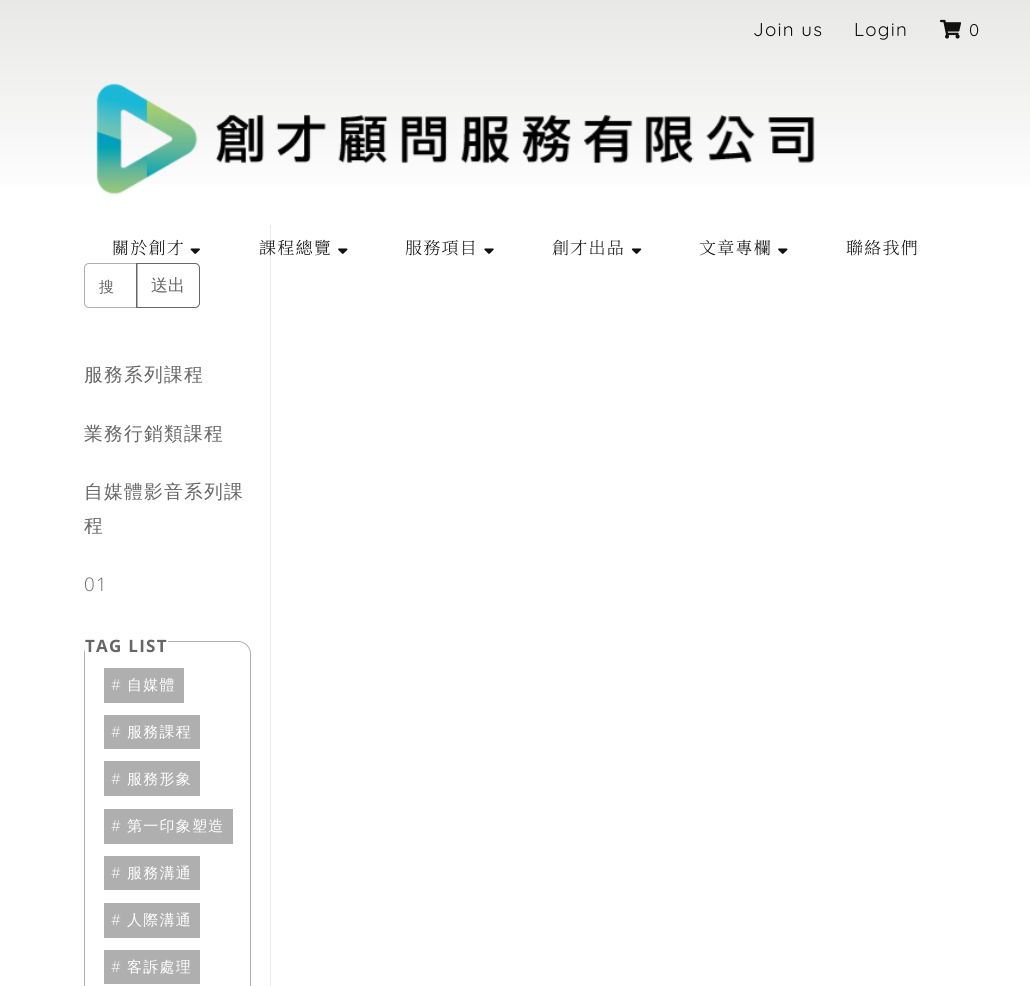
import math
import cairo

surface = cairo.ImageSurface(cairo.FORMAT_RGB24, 1030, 986)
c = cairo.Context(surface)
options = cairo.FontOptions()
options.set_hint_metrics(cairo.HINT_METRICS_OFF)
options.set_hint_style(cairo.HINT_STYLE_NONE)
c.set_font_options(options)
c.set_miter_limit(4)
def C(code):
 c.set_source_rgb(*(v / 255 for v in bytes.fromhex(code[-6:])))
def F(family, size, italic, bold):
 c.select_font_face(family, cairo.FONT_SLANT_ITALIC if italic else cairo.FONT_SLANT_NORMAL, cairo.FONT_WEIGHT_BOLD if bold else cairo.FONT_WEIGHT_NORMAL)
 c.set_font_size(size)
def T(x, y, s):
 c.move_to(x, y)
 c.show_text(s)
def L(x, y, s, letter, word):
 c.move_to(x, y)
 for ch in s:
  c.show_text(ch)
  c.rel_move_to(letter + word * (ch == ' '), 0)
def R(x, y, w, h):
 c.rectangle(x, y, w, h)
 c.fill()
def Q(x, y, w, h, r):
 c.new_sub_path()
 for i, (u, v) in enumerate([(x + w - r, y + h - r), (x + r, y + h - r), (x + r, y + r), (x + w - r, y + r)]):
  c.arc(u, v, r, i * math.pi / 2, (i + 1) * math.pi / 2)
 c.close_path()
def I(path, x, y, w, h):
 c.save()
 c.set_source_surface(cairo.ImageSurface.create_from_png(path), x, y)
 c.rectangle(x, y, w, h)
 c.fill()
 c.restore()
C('ffffff')
c.paint()
gradient = cairo.LinearGradient(515,0,515,206)
gradient.add_color_stop_rgba(0,0.91,0.91,0.906,1)
gradient.add_color_stop_rgba(1,1,1,1,1)
c.set_source(gradient)
R(0,0,1030,185)
F('Quicksand Light',18.75,0,0)
C('101010')
L(753,36,'Join us',1.25,0)
L(854,36,'Login',1.25,0)
I('1.png',940,19,22,20)
F('Quicksand Light',17,0,0)
L(969,36,'0',1.25,0)
I('2.png',96,83,719,112)
F('Noto Serif TC Light',17,0,0)
L(112,254,'關於創才',1.25,0)
I('3.png',190,248,10,6)
C('ebebeb')
R(270,225,1,761)
C('101010')
L(259,254,'課程總覽',1.25,0)
I('4.png',338,248,10,6)
L(405,254,'服務項目',1.25,0)
I('5.png',484,248,10,6)
L(552,254,'創才出品',1.25,0)
I('6.png',631,248,11,6)
L(699,254,'文章專欄',1.25,0)
I('4.png',778,248,10,6)
L(846,254,'聯絡我們',1.25,0)
c.new_path()
c.move_to(89,263.5)
c.line_to(137.5,263.5)
c.line_to(137.5,307.5)
c.line_to(89,307.5)
c.curve_to(86.5,307.5,84.5,305.5,84.5,303)
c.line_to(84.5,268)
c.curve_to(84.5,265.5,86.5,263.5,89,263.5)
c.close_path()
C('afafaf')
c.set_line_width(1)
c.stroke()
F('WenQuanYi Zen Hei Medium',15,0,0)
C('666666')
T(99,292,'搜')
c.new_path()
c.move_to(136.5,263.5)
c.line_to(195,263.5)
c.curve_to(197.5,263.5,199.5,265.5,199.5,268)
c.line_to(199.5,303)
c.curve_to(199.5,305.5,197.5,307.5,195,307.5)
c.line_to(136.5,307.5)
c.close_path()
c.stroke()
F('WenQuanYi Zen Hei Medium',17,0,0)
T(151,291,'送出')
F('WenQuanYi Zen Hei Medium',18.75,0,0)
L(84,381,'服務系列課程',1.25,0)
L(84,440,'業務行銷類課程',1.25,0)
L(84,498,'自媒體影音系列課',1.25,0)
L(84,532,'程',1.25,0)
F('Open Sans Light',18.75,0,0)
L(84,591,'01',1.25,0)
Q(84.5,641.5,166,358,12.5)
C('afafaf')
c.stroke()
C('ffffff')
R(85,641,83,13)
F('Open Sans',17,0,1)
C('666666')
L(85,652,'TAG LIST',1.25,0)
C('afafaf')
R(104,668,80,35)
F('Open Sans Light',15,0,0)
C('ffffff')
L(111,690,'#',1.25,0)
F('WenQuanYi Zen Hei Medium',15,0,0)
L(127,690,'自媒體',1.25,0)
C('afafaf')
R(104,715,96,34)
F('Open Sans Light',15,0,0)
C('ffffff')
L(111,737,'#',1.25,0)
F('WenQuanYi Zen Hei Medium',15,0,0)
L(127,737,'服務課程',1.25,0)
C('afafaf')
R(104,761,96,35)
F('Open Sans Light',15,0,0)
C('ffffff')
L(111,784,'#',1.25,0)
F('WenQuanYi Zen Hei Medium',15,0,0)
L(127,784,'服務形象',1.25,0)
C('afafaf')
R(104,809,129,35)
F('Open Sans Light',15,0,0)
C('ffffff')
L(111,831,'#',1.25,0)
F('WenQuanYi Zen Hei Medium',15,0,0)
L(127,831,'第一印象塑造',1.25,0)
C('afafaf')
R(104,856,96,34)
F('Open Sans Light',15,0,0)
C('ffffff')
L(111,878,'#',1.25,0)
F('WenQuanYi Zen Hei Medium',15,0,0)
L(127,878,'服務溝通',1.25,0)
C('afafaf')
R(104,903,96,35)
F('Open Sans Light',15,0,0)
C('ffffff')
L(111,925,'#',1.25,0)
F('WenQuanYi Zen Hei Medium',15,0,0)
L(127,925,'人際溝通',1.25,0)
C('afafaf')
R(104,950,96,34)
F('Open Sans Light',15,0,0)
C('ffffff')
L(111,972,'#',1.25,0)
F('WenQuanYi Zen Hei Medium',15,0,0)
L(127,972,'客訴處理',1.25,0)
surface.write_to_png('o.png')
